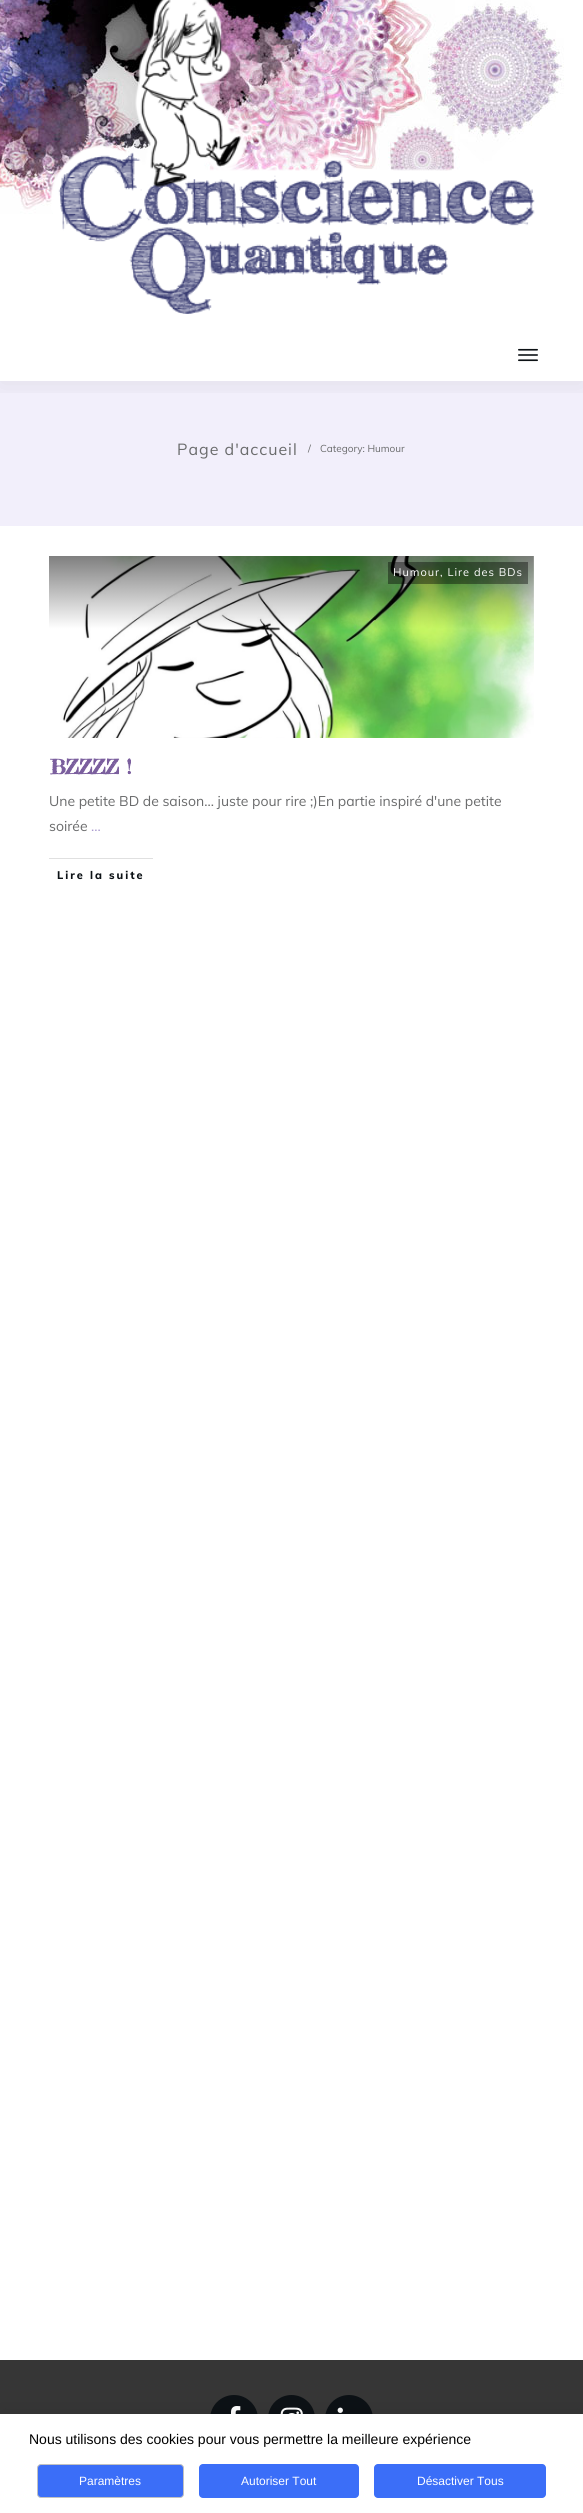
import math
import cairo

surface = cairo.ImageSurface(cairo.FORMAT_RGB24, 583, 2513)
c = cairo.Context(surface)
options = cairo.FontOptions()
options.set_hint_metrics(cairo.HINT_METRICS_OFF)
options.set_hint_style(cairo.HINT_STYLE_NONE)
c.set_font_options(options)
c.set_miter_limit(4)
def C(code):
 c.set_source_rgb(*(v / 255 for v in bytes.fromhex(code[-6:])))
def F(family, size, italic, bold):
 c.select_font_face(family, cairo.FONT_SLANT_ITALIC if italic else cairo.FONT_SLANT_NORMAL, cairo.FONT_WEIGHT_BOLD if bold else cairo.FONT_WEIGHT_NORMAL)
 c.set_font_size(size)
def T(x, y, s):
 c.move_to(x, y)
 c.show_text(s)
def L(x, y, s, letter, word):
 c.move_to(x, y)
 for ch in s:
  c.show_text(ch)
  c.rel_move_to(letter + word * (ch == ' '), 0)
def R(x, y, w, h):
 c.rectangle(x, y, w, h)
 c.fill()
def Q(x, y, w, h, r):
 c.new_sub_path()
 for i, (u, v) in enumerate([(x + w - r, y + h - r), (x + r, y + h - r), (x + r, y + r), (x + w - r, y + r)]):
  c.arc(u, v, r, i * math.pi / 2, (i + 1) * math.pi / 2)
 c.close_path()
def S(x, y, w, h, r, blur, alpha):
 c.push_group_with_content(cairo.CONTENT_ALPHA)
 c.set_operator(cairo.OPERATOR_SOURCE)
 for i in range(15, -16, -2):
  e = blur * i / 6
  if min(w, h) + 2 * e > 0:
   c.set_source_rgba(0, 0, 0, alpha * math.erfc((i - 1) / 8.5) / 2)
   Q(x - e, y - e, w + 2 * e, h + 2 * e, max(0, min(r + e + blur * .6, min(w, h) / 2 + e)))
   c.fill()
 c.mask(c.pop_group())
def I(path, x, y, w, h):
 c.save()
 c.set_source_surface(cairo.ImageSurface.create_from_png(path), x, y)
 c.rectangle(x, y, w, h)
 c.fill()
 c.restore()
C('ffffff')
c.paint()
C('f2effb')
R(0,381,583,145)
c.save()
c.rectangle(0,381,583,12)
c.clip()
C('000000')
S(0,2,583,381,0,15,.08)
c.restore()
I('1.png',0,0,564,214)
I('2.png',49,0,486,314)
I('3.png',518,348,20,14)
F('Muli',16,0,0)
C('6a6b6c')
L(177,455,'Page d\'accueil',1,0)
F('Muli',10,0,0)
T(308,452,'/')
T(320,452,'Category: Humour')
I('4.png',49,556,485,182)
c.set_source_rgba(0,0,0,0.4)
R(388,562,140,22)
F('Muli',11,0,0)
C('ffffff')
L(393,576,'Humour, Lire des BDs',1,0)
F('Fredericka the Great',20,0,1)
C('7b5f9e')
T(50,774,'BZZZZ !')
F('Muli',14,0,0)
C('6a6b6c')
T(49,806,'Une petite BD de saison... juste pour rire ;)En partie inspiré d\'une petite')
T(49,831,'soirée')
C('aa9bcf')
T(91,831,'...')
C('e0e0e0')
R(49,858,104,1)
F('Muli ExtraBold',11,0,0)
C('0c1115')
L(57,879,'Lire la suite',2,0)
C('363636')
R(0,2360,583,54)
C('0c1115')
c.new_path()
c.arc(234,2419,24,0,2 * math.pi)
c.fill()
I('5.png',231,2406,10,8)
Q(268,2395,47,48,23.5)
c.fill()
I('6.png',280,2407,23,7)
c.arc(349,2419,24,0,2 * math.pi)
c.fill()
I('7.png',337,2407,6,6)
C('000000')
S(0,2410,583,99,0,9.5,.07)
C('ffffff')
R(0,2414,583,99)
F('Liberation Sans',14,0,0)
C('000000')
T(29,2444,'Nous utilisons des cookies pour vous permettre la meilleure expérience')
C('3b6ef8')
Q(37.5,2464.5,146,33,3.5)
c.fill_preserve()
C('c1c1c1')
c.set_line_width(1)
c.stroke()
F('Liberation Sans',12,0,0)
C('ffffff')
T(79,2485,'Paramètres')
C('3b6ef8')
Q(199,2464,160,34,4)
c.fill()
C('ffffff')
T(241,2485,'Autoriser Tout')
C('3b6ef8')
Q(374,2464,172,34,4)
c.fill()
C('ffffff')
T(417,2485,'Désactiver Tous')
surface.write_to_png('o.png')
